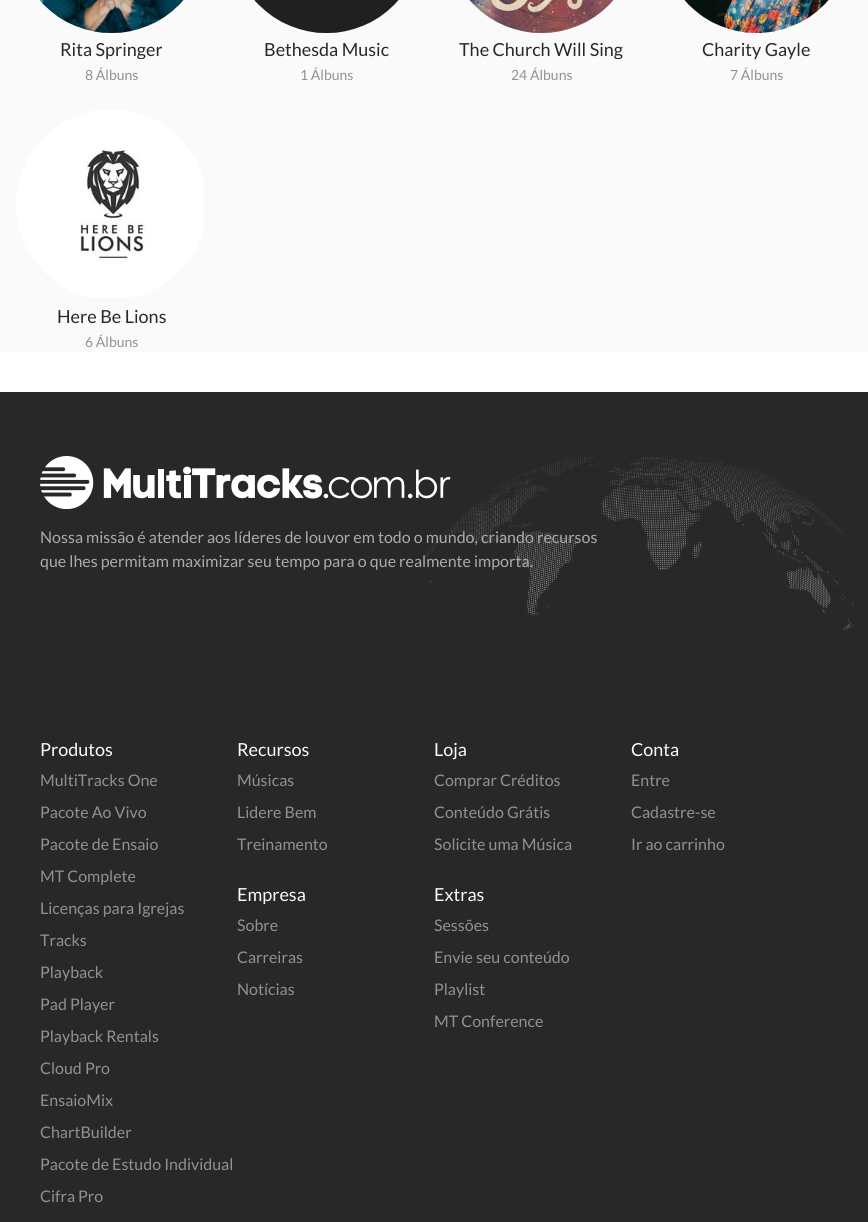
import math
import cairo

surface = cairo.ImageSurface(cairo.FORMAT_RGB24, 868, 1222)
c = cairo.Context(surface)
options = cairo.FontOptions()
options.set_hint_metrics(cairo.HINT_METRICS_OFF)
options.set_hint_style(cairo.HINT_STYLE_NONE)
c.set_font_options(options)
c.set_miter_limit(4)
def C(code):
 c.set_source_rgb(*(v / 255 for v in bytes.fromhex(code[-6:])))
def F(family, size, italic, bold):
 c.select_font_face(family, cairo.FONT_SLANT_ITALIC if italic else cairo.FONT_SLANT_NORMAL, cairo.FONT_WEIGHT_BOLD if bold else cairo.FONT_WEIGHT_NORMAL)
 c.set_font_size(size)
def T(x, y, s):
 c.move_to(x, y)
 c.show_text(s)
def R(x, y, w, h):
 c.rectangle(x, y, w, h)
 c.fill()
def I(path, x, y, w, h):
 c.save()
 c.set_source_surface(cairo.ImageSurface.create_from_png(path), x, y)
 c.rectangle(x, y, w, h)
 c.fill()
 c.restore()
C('ffffff')
c.paint()
C('fafafa')
R(0,0,868,352)
I('1.png',39,0,145,33)
c.save()
c.rectangle(16,39,191,20)
c.clip()
F('Lato',18,0,0)
C('282828')
T(60,56,'Rita Springer')
c.restore()
F('Lato',14,0,0)
C('919191')
T(85,80,'8 Álbuns')
I('2.png',254,0,145,33)
F('Lato',18,0,0)
C('282828')
T(264,56,'Bethesda Music')
F('Lato',14,0,0)
C('919191')
T(300,80,'1 Álbuns')
I('3.png',469,0,145,33)
c.save()
c.rectangle(446,39,191,20)
c.clip()
F('Lato',18,0,0)
C('282828')
T(459,56,'The Church Will Sing')
c.restore()
T(511,80,'24 Álbuns')
I('4.png',684,0,145,33)
F('Lato',18,0,0)
C('282828')
T(702,56,'Charity Gayle')
F('Lato',14,0,0)
C('919191')
T(730,80,'7 Álbuns')
I('5.png',16,109,188,188)
F('Lato',18,0,0)
C('282828')
T(57,323,'Here Be Lions')
F('Lato',14,0,0)
C('919191')
T(85,347,'6 Álbuns')
C('282828')
R(0,392,868,830)
I('6.png',424,457,430,174)
I('7.png',40,456,411,53)
F('Lato',16,0,0)
C('ababab')
T(40,543,'Nossa missão é atender aos líderes de louvor em todo o mundo, criando recursos')
T(40,567,'que lhes permitam maximizar seu tempo para o que realmente importa.')
F('Lato',18,0,0)
C('fafafa')
T(40,756,'Produtos')
F('Lato',16,0,0)
C('919191')
T(40,786,'MultiTracks One')
T(40,818,'Pacote Ao Vivo')
T(40,850,'Pacote de Ensaio')
T(40,882,'MT Complete')
T(40,914,'Licenças para Igrejas')
T(40,946,'Tracks')
T(40,978,'Playback')
T(40,1010,'Pad Player')
T(40,1042,'Playback Rentals')
T(40,1074,'Cloud Pro')
T(40,1106,'EnsaioMix')
T(40,1138,'ChartBuilder')
T(40,1170,'Pacote de Estudo Individual')
T(40,1202,'Cifra Pro')
F('Lato',18,0,0)
C('fafafa')
T(237,756,'Recursos')
F('Lato',16,0,0)
C('919191')
T(237,786,'Músicas')
T(237,818,'Lidere Bem')
T(237,850,'Treinamento')
F('Lato',18,0,0)
C('fafafa')
T(237,901,'Empresa')
F('Lato',16,0,0)
C('919191')
T(237,931,'Sobre')
T(237,963,'Carreiras')
T(237,995,'Notícias')
F('Lato',18,0,0)
C('fafafa')
T(434,756,'Loja')
F('Lato',16,0,0)
C('919191')
T(434,786,'Comprar Créditos')
T(434,818,'Conteúdo Grátis')
T(434,850,'Solicite uma Música')
F('Lato',18,0,0)
C('fafafa')
T(434,901,'Extras')
F('Lato',16,0,0)
C('919191')
T(434,931,'Sessões')
T(434,963,'Envie seu conteúdo')
T(434,995,'Playlist')
T(434,1027,'MT Conference')
F('Lato',18,0,0)
C('fafafa')
T(631,756,'Conta')
F('Lato',16,0,0)
C('919191')
T(631,786,'Entre')
T(631,818,'Cadastre-se')
T(631,850,'Ir ao carrinho')
surface.write_to_png('o.png')
